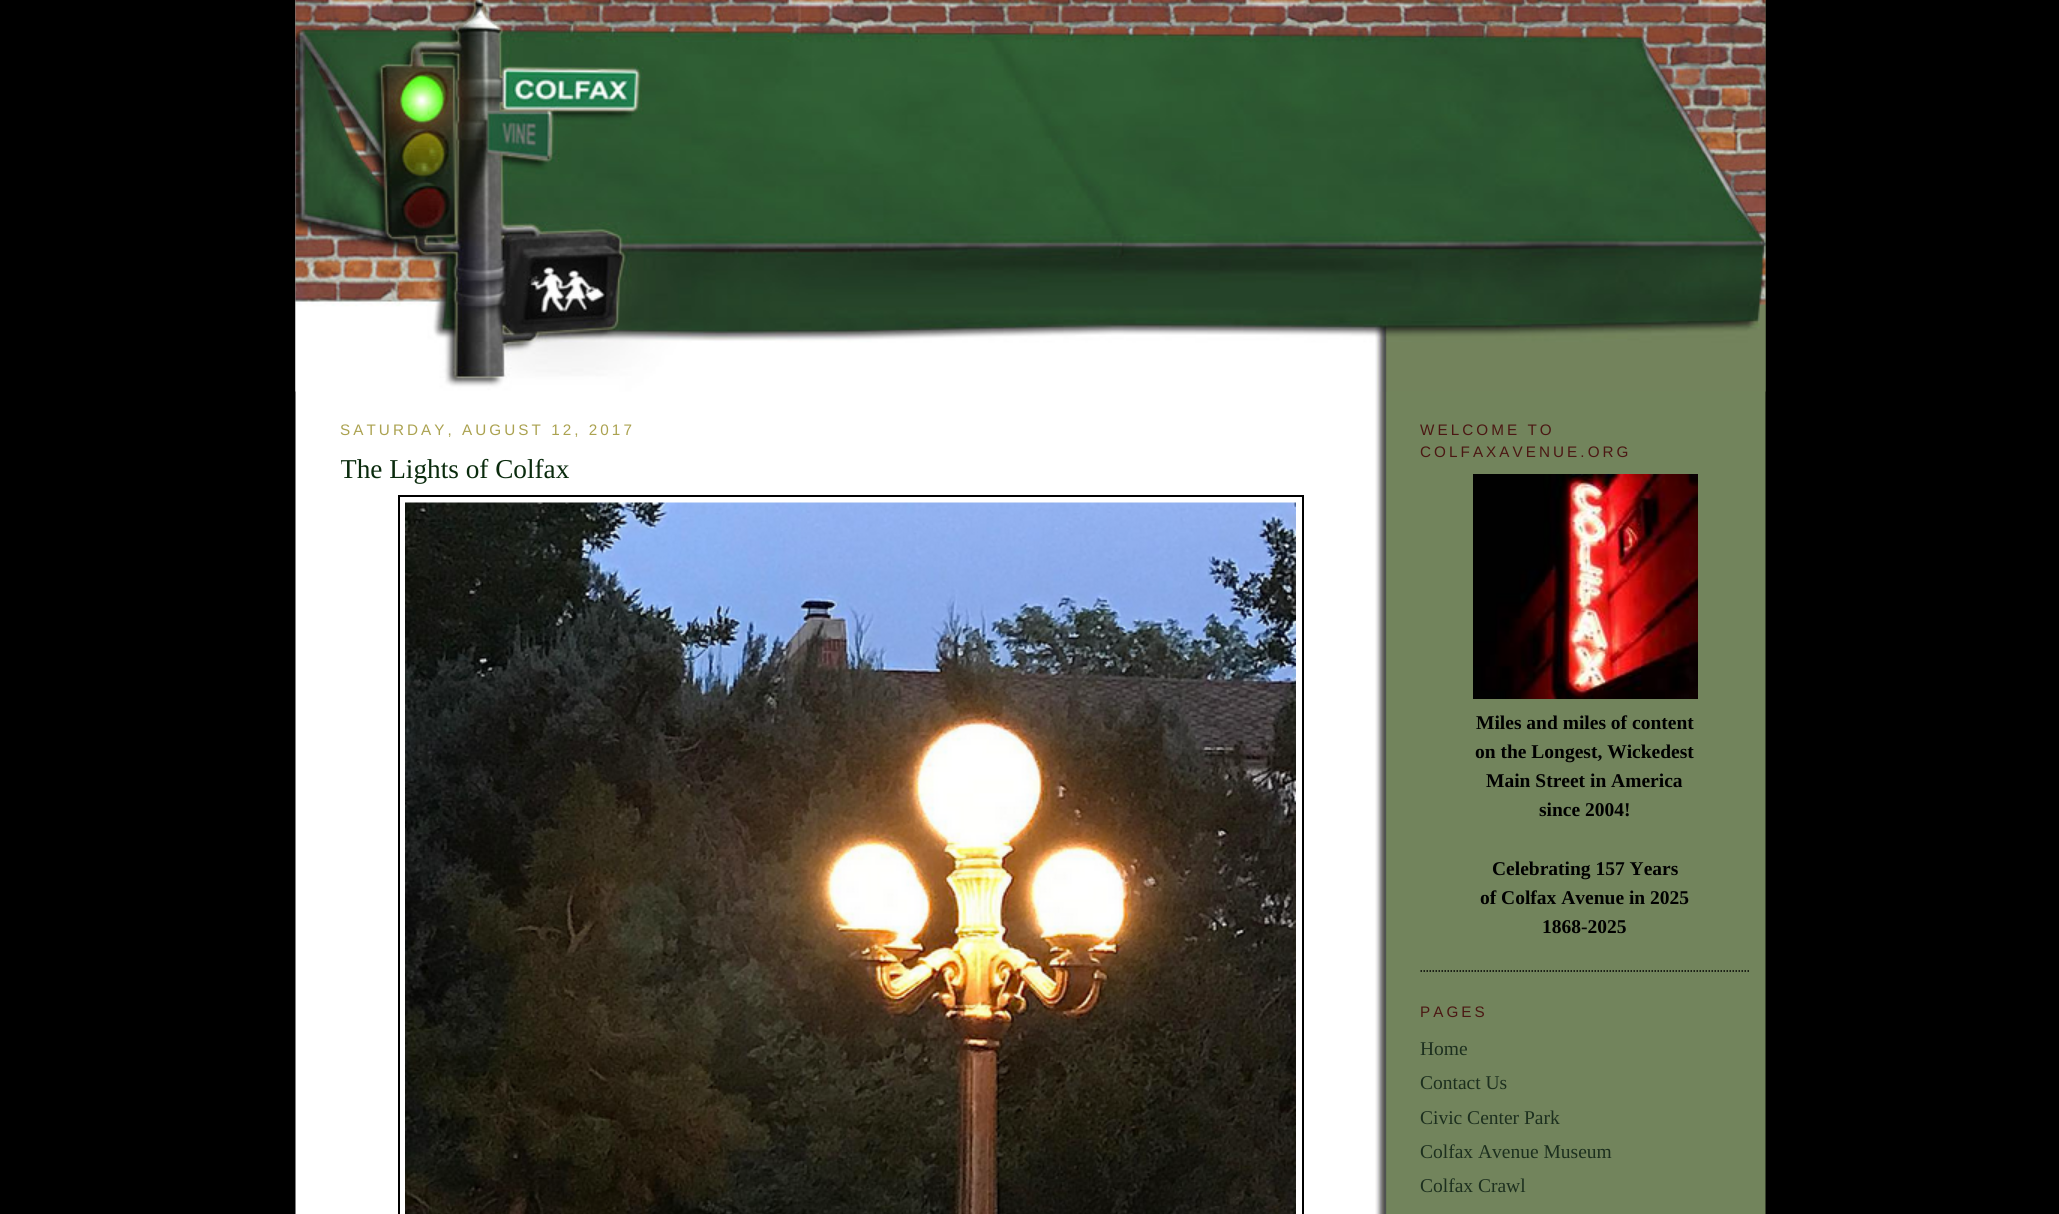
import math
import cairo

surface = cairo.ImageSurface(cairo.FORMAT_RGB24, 2059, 1214)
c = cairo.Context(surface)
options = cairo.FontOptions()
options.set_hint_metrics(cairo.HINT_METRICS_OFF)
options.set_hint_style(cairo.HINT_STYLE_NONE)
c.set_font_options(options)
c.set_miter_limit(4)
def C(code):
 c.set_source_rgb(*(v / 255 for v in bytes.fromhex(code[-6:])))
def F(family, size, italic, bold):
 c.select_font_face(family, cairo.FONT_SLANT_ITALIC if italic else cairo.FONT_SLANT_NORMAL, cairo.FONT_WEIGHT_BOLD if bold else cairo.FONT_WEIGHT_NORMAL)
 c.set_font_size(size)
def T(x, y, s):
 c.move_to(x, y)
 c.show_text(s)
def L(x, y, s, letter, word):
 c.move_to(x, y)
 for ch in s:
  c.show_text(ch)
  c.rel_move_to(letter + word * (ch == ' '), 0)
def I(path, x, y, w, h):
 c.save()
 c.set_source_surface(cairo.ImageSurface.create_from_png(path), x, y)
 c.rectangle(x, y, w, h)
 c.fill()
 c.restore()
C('000000')
c.paint()
I('1.png',295,0,1471,1214)
I('2.png',295,0,1471,392)
F('Liberation Sans',15.25,0,0)
C('aba250')
L(340,435,'SATURDAY, AUGUST 12, 2017',3.05,0)
c.save()
c.rectangle(341,398,1020,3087)
c.clip()
F('Liberation Serif',27.25,0,0)
C('0a2b0d')
T(340,478,'The Lights of Colfax')
c.restore()
c.rectangle(399,496,904,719)
C('000000')
c.stroke()
I('3.png',405,502,891,712)
c.new_path()
c.move_to(1420.5,971)
c.line_to(1750.5,971)
c.set_line_width(1.5)
c.set_dash([1.5,1.5])
c.stroke()
C('4b1713')
L(1420,435,'WELCOME TO',3.05,0)
L(1420,457,'COLFAXAVENUE.ORG',3.05,0)
I('4.png',1473,474,225,225)
F('Liberation Serif',19.5,0,1)
C('000000')
T(1476,729,'Miles and miles of content')
T(1475,758,'on the Longest, Wickedest')
T(1486,787,'Main Street in America')
T(1539,816,'since 2004!')
T(1492,875,'Celebrating 157 Years')
T(1480,904,'of Colfax Avenue in 2025')
T(1542,933,'1868-2025')
F('Liberation Sans',15.25,0,0)
C('4b1713')
L(1420,1017,'PAGES',3.05,0)
F('Liberation Serif',19.5,0,0)
C('1c2f1e')
T(1420,1055,'Home')
T(1420,1089,'Contact Us')
T(1420,1124,'Civic Center Park')
T(1420,1158,'Colfax Avenue Museum')
T(1420,1192,'Colfax Crawl')
surface.write_to_png('o.png')
